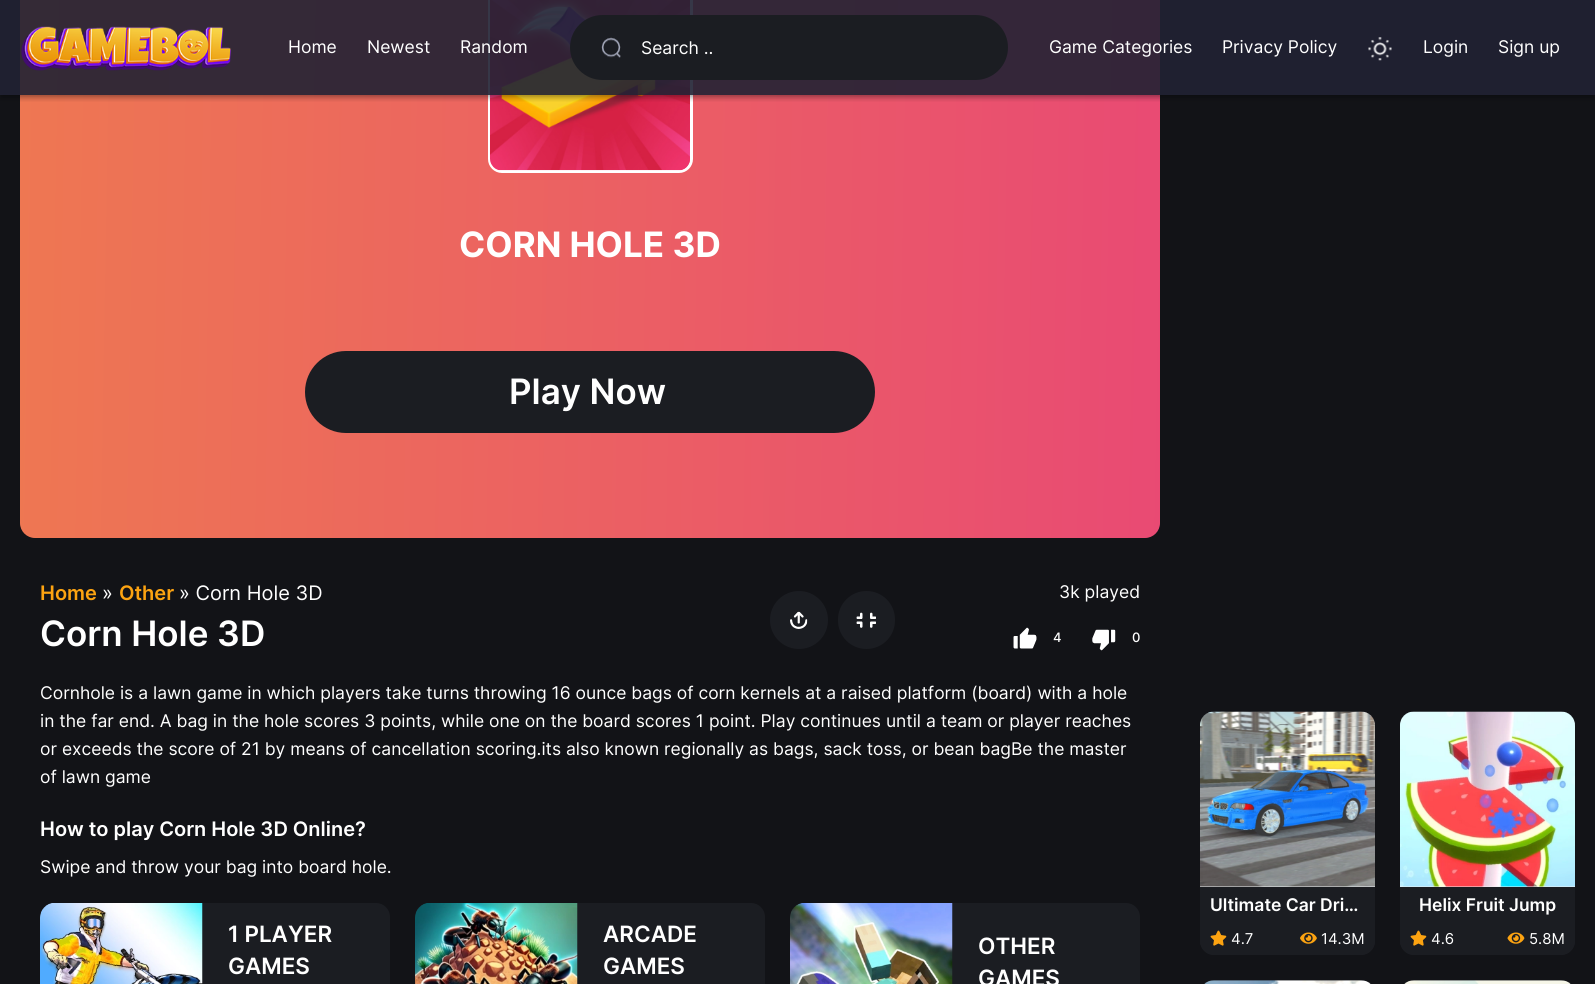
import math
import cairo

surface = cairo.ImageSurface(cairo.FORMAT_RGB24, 1595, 984)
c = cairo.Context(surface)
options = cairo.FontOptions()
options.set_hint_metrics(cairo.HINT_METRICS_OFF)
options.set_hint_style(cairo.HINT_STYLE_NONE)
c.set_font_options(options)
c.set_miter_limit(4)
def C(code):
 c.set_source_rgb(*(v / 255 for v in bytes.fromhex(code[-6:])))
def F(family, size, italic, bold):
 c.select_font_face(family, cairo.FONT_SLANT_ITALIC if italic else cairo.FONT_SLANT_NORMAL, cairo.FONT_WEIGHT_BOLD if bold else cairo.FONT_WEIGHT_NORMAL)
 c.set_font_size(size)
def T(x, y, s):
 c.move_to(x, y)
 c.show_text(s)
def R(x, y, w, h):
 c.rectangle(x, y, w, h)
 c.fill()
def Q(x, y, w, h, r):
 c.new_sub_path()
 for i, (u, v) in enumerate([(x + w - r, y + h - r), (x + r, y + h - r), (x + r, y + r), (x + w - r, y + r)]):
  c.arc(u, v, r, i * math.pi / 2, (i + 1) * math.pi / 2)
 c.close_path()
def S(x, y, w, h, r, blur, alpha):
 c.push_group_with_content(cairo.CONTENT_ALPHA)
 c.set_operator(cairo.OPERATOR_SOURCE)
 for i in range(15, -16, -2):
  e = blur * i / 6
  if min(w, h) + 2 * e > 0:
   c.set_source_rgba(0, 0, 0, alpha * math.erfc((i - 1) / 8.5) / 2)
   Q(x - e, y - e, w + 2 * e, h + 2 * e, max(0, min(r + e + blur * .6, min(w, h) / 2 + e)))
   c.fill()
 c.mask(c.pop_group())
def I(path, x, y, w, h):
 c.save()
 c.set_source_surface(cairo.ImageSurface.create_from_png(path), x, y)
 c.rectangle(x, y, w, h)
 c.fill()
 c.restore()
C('121317')
c.paint()
gradient = cairo.LinearGradient(-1.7,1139,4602,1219)
gradient.add_color_stop_rgba(0,0.933,0.467,0.322,1)
gradient.add_color_stop_rgba(.33,0.906,0.235,0.494,1)
gradient.add_color_stop_rgba(.67,0.137,0.651,0.835,1)
gradient.add_color_stop_rgba(1,0.153,0.192,0.184,1)
c.set_source(gradient)
Q(20,-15,1140,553,15)
c.fill()
Q(489.5,-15.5,202,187,12.5)
C('ffffff')
c.set_line_width(3)
c.stroke()
I('4.png',490,0,200,171)
c.save()
c.rectangle(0,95,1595,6)
c.clip()
C('000000')
S(0,1,1595,95,0,5,.12)
c.restore()
c.save()
c.rectangle(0,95,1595,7)
c.clip()
C('000000')
S(0,4,1595,95,0,2.5,.14)
c.restore()
c.save()
c.rectangle(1,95,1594,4)
c.clip()
C('000000')
S(3,6,1590,90,0,2,.2)
c.restore()
c.set_source_rgba(0.129,0.133,0.2,0.9)
R(0,0,1595,95)
I('1.png',21,26,210,45)
F('Inter',17.5,0,0)
C('ffffff')
T(288,53,'Home')
T(367,53,'Newest')
T(460,53,'Random')
C('1b1d22')
Q(570,15,438,65,32.5)
c.fill()
I('2.png',601,37,20,21)
C('ffffff')
T(641,54,'Search ..')
T(1049,53,'Game Categories')
T(1222,53,'Privacy Policy')
I('3.png',1368,37,24,24)
T(1423,53,'Login')
T(1498,53,'Sign up')
F('Inter',35,0,1)
T(459,257,'CORN HOLE 3D')
C('1b1d22')
Q(305,351,570,82,41)
c.fill()
F('Inter SemiBold',35,0,0)
C('ffffff')
T(509,404,'Play Now')
F('Inter SemiBold',20,0,0)
C('fca311')
T(40,600,'Home')
F('Inter',20,0,0)
C('ffffff')
T(102,600,'»')
F('Inter SemiBold',20,0,0)
C('fca311')
T(119,600,'Other')
F('Inter',20,0,0)
C('ffffff')
T(179,600,'» Corn Hole 3D')
F('Inter SemiBold',35,0,0)
T(40,646,'Corn Hole 3D')
C('1b1d22')
c.new_path()
c.arc(799,620,29,0,2 * math.pi)
c.fill()
I('5.png',790,611,18,18)
Q(838,591,57,58,28.5)
c.fill()
I('6.png',856,612,20,16)
F('Inter',17.5,0,0)
C('ffffff')
T(1059,598,'3k played')
I('7.png',1013,627,24,22)
F('Inter Medium',13,0,0)
T(1053,642,'4')
I('8.png',1092,629,24,22)
T(1132,642,'0')
F('Inter',17.5,0,0)
T(40,699,'Cornhole is a lawn game in which players take turns throwing 16 ounce bags of corn kernels at a raised platform (board) with a hole')
T(40,727,'in the far end. A bag in the hole scores 3 points, while one on the board scores 1 point. Play continues until a team or player reaches')
T(40,755,'or exceeds the score of 21 by means of cancellation scoring.its also known regionally as bags, sack toss, or bean bagBe the master')
T(40,783,'of lawn game')
F('Inter SemiBold',20,0,0)
T(40,836,'How to play Corn Hole 3D Online?')
F('Inter',17.5,0,0)
T(40,873,'Swipe and throw your bag into board hole.')
C('1b1d22')
Q(40,903,350,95,14)
c.fill()
I('9.png',40,903,163,81)
F('Inter SemiBold',22.5,0,0)
C('ffffff')
T(228,942,'1 PLAYER')
T(228,974,'GAMES')
C('1b1d22')
Q(415,903,350,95,14)
c.fill()
I('10.png',415,903,163,81)
C('ffffff')
T(603,942,'ARCADE')
T(603,974,'GAMES')
C('1b1d22')
Q(790,903,350,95,14)
c.fill()
I('11.png',790,903,163,81)
C('ffffff')
T(978,954,'OTHER')
T(978,986,'GAMES')
C('1b1d22')
Q(1200,711,175,244,14)
c.fill()
c.new_path()
c.move_to(1200,886)
c.line_to(1375,886)
c.line_to(1375,941)
c.curve_to(1375,948.5,1368.5,955,1361,955)
c.line_to(1214,955)
c.curve_to(1206.5,955,1200,948.5,1200,941)
c.close_path()
c.fill()
C('eff2f5')
R(1200,886,175,1)
I('12.png',1200,711,175,176)
F('Inter SemiBold',17.5,0,0)
C('ffffff')
T(1210,911,'Ultimate Car Dri…')
I('13.png',1210,930,17,16)
F('Inter',15,0,0)
T(1231,944,'4.7')
I('14.png',1300,932,17,12)
T(1321,944,'14.3M')
C('1b1d22')
Q(1400,711,175,244,14)
c.fill()
c.new_path()
c.move_to(1400,886)
c.line_to(1575,886)
c.line_to(1575,941)
c.curve_to(1575,948.5,1568.5,955,1561,955)
c.line_to(1414,955)
c.curve_to(1406.5,955,1400,948.5,1400,941)
c.close_path()
c.fill()
C('eff2f5')
R(1400,886,175,1)
I('15.png',1400,711,175,176)
F('Inter SemiBold',17.5,0,0)
C('ffffff')
T(1419,911,'Helix Fruit Jump')
I('13.png',1410,930,17,16)
F('Inter',15,0,0)
T(1431,944,'4.6')
I('16.png',1507,932,18,12)
T(1529,944,'5.8M')
C('1b1d22')
Q(1200,980,175,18,14)
c.fill()
I('17.png',1204,980,167,4)
Q(1400,980,175,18,14)
c.fill()
I('18.png',1404,980,167,4)
surface.write_to_png('o.png')
